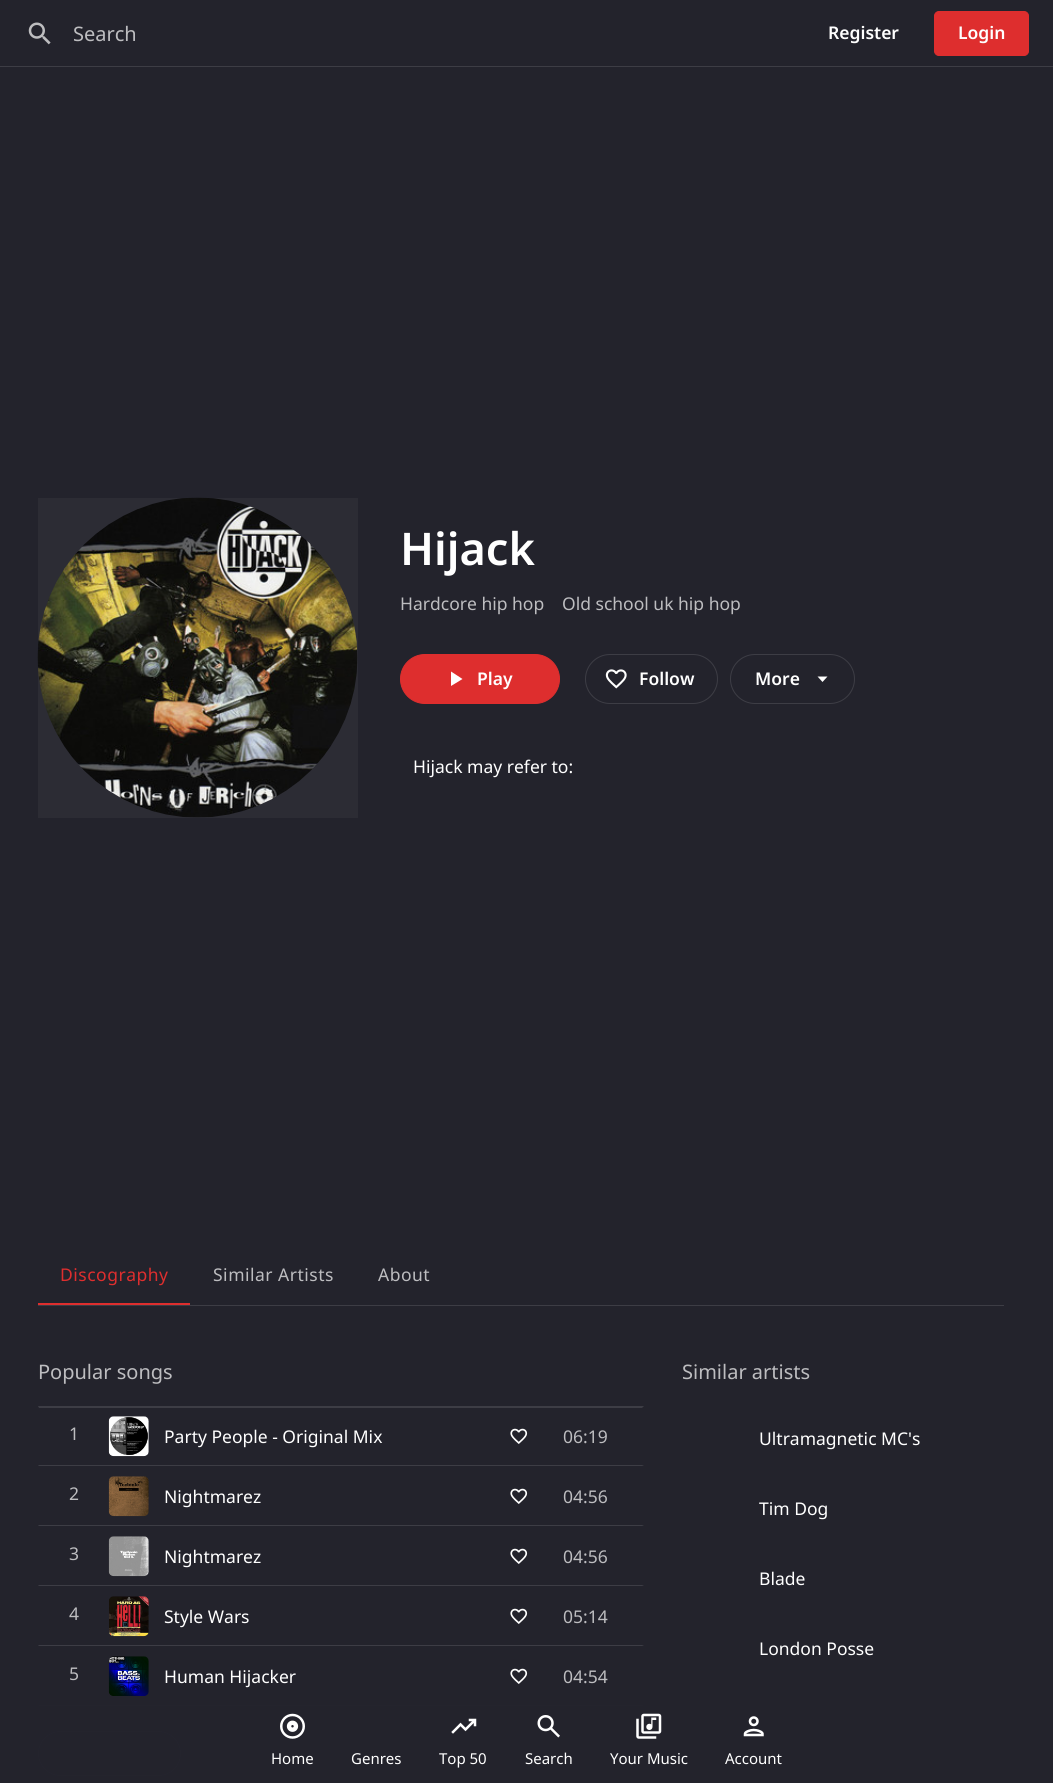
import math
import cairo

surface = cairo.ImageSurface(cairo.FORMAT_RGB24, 1053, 1783)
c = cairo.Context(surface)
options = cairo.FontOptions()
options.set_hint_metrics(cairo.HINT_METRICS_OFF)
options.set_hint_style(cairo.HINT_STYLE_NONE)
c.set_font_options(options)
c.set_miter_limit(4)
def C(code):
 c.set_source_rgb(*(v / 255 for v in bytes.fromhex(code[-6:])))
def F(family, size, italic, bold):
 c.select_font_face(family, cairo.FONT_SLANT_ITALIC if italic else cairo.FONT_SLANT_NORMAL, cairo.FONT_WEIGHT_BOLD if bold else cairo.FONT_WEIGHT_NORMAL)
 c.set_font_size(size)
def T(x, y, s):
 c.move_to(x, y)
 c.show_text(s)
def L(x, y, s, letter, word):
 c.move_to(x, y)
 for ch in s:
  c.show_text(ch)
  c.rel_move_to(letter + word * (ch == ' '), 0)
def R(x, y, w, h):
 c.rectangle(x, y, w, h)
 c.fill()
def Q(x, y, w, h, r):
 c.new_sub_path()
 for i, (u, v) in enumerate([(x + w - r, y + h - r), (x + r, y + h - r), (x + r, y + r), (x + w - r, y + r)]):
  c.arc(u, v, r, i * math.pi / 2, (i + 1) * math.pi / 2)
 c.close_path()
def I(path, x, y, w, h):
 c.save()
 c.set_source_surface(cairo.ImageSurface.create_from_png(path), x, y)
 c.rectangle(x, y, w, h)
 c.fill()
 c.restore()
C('23232c')
c.paint()
C('3d3d45')
R(0,66,1053,1)
I('1.png',28,22,23,23)
F('Noto Sans',20,0,0)
C('bdbdc0')
T(73,41,'Search')
F('Noto Sans SemiBold',17.5,0,0)
C('ffffff')
T(828,39,'Register')
C('de2e2e')
Q(934.5,11.5,94,44,4.5)
c.fill_preserve()
c.set_line_width(1)
c.stroke()
C('ffffff')
T(958,39,'Login')
c.set_source_rgba(1,1,1,0.04)
R(38,498,320,320)
I('2.png',37,497,321,321)
F('Noto Sans SemiBold',45,0,0)
C('ffffff')
T(400,565,'Hijack')
F('Noto Sans',17.5,0,0)
C('bdbdc0')
T(400,610,'Hardcore hip hop')
T(562,610,'Old school uk hip hop')
C('de2e2e')
Q(400.5,654.5,159,49,24.5)
c.fill_preserve()
c.stroke()
C('ffffff')
c.new_path()
c.move_to(451,686)
c.line_to(451,671.5)
c.line_to(462.5,679)
c.close_path()
c.fill()
F('Noto Sans SemiBold',17.5,0,0)
T(477,685,'Play')
Q(585.5,654.5,132,49,24.5)
C('3d3d45')
c.stroke()
I('3.png',605,669,22,20)
C('ffffff')
T(639,685,'Follow')
Q(730.5,654.5,124,49,24.5)
C('3d3d45')
c.stroke()
C('ffffff')
T(755,685,'More')
c.new_path()
c.move_to(817.5,676.5)
c.line_to(822.5,682)
c.line_to(827.5,676.5)
c.close_path()
c.fill()
F('Noto Sans',17.5,0,0)
T(413,773,'Hijack may refer to:')
C('3d3d45')
R(38,1305,966,1)
C('de2e2e')
L(60,1281,'Discography',.5,0)
C('bdbdc0')
L(213,1281,'Similar Artists',.5,0)
L(378,1281,'About',.5,0)
C('de2e2e')
R(38,1303,152,2)
F('Noto Sans',20,0,0)
C('bdbdc0')
T(38,1379,'Popular songs')
C('3d3d45')
c.new_path()
c.move_to(38,1406)
c.line_to(644,1406)
c.line_to(642,1408)
c.line_to(39,1408)
c.close_path()
c.fill()
c.new_path()
c.move_to(644,1466)
c.line_to(38,1466)
c.line_to(39,1465)
c.line_to(642,1465)
c.close_path()
c.fill()
F('Noto Sans',17.5,0,0)
C('bdbdc0')
T(69,1440,'1')
I('4.png',108,1416,41,41)
C('ffffff')
T(164,1443,'Party People - Original Mix')
I('5.png',510,1428,18,16)
C('bdbdc0')
T(563,1443,'06:19')
C('3d3d45')
c.new_path()
c.move_to(644,1526)
c.line_to(38,1526)
c.line_to(39,1525)
c.line_to(642,1525)
c.close_path()
c.fill()
C('bdbdc0')
T(69,1500,'2')
I('6.png',108,1476,41,41)
C('ffffff')
T(164,1503,'Nightmarez')
I('5.png',510,1488,18,16)
C('bdbdc0')
T(563,1503,'04:56')
C('3d3d45')
c.new_path()
c.move_to(644,1586)
c.line_to(38,1586)
c.line_to(39,1585)
c.line_to(642,1585)
c.close_path()
c.fill()
C('bdbdc0')
T(69,1560,'3')
I('7.png',108,1536,41,41)
C('ffffff')
T(164,1563,'Nightmarez')
I('5.png',510,1548,18,16)
C('bdbdc0')
T(563,1563,'04:56')
C('3d3d45')
c.new_path()
c.move_to(644,1646)
c.line_to(38,1646)
c.line_to(39,1645)
c.line_to(642,1645)
c.close_path()
c.fill()
C('bdbdc0')
T(69,1620,'4')
I('8.png',109,1596,40,41)
C('ffffff')
T(164,1623,'Style Wars')
I('5.png',510,1608,18,16)
C('bdbdc0')
T(563,1623,'05:14')
C('3d3d45')
c.new_path()
c.move_to(644,1706)
c.line_to(38,1706)
c.line_to(39,1705)
c.line_to(642,1705)
c.close_path()
c.fill()
C('bdbdc0')
T(69,1680,'5')
I('9.png',108,1656,41,41)
C('ffffff')
T(164,1683,'Human Hijacker')
I('5.png',510,1668,18,16)
C('bdbdc0')
T(563,1683,'04:54')
Q(38.5,1731.5,142,44,22)
C('3d3d45')
c.stroke()
F('Noto Sans',20,0,0)
C('bdbdc0')
T(682,1379,'Similar artists')
F('Noto Sans',17.5,0,0)
C('ffffff')
T(759,1445,'Ultramagnetic MC\'s')
T(759,1515,'Tim Dog')
T(759,1585,'Blade')
T(759,1655,'London Posse')
c.set_source_rgba(0.137,0.137,0.173,0.95)
R(38,1696,606,80)
I('10.png',280,1713,25,26)
F('Noto Sans',15,0,0)
C('ffffff')
T(271,1764,'Home')
T(351,1764,'Genres')
I('11.png',451,1718,26,16)
T(439,1764,'Top 50')
I('12.png',537,1715,23,23)
T(525,1764,'Search')
I('13.png',636,1713,26,26)
T(610,1764,'Your Music')
I('14.png',743,1716,21,21)
T(725,1764,'Account')
surface.write_to_png('o.png')
